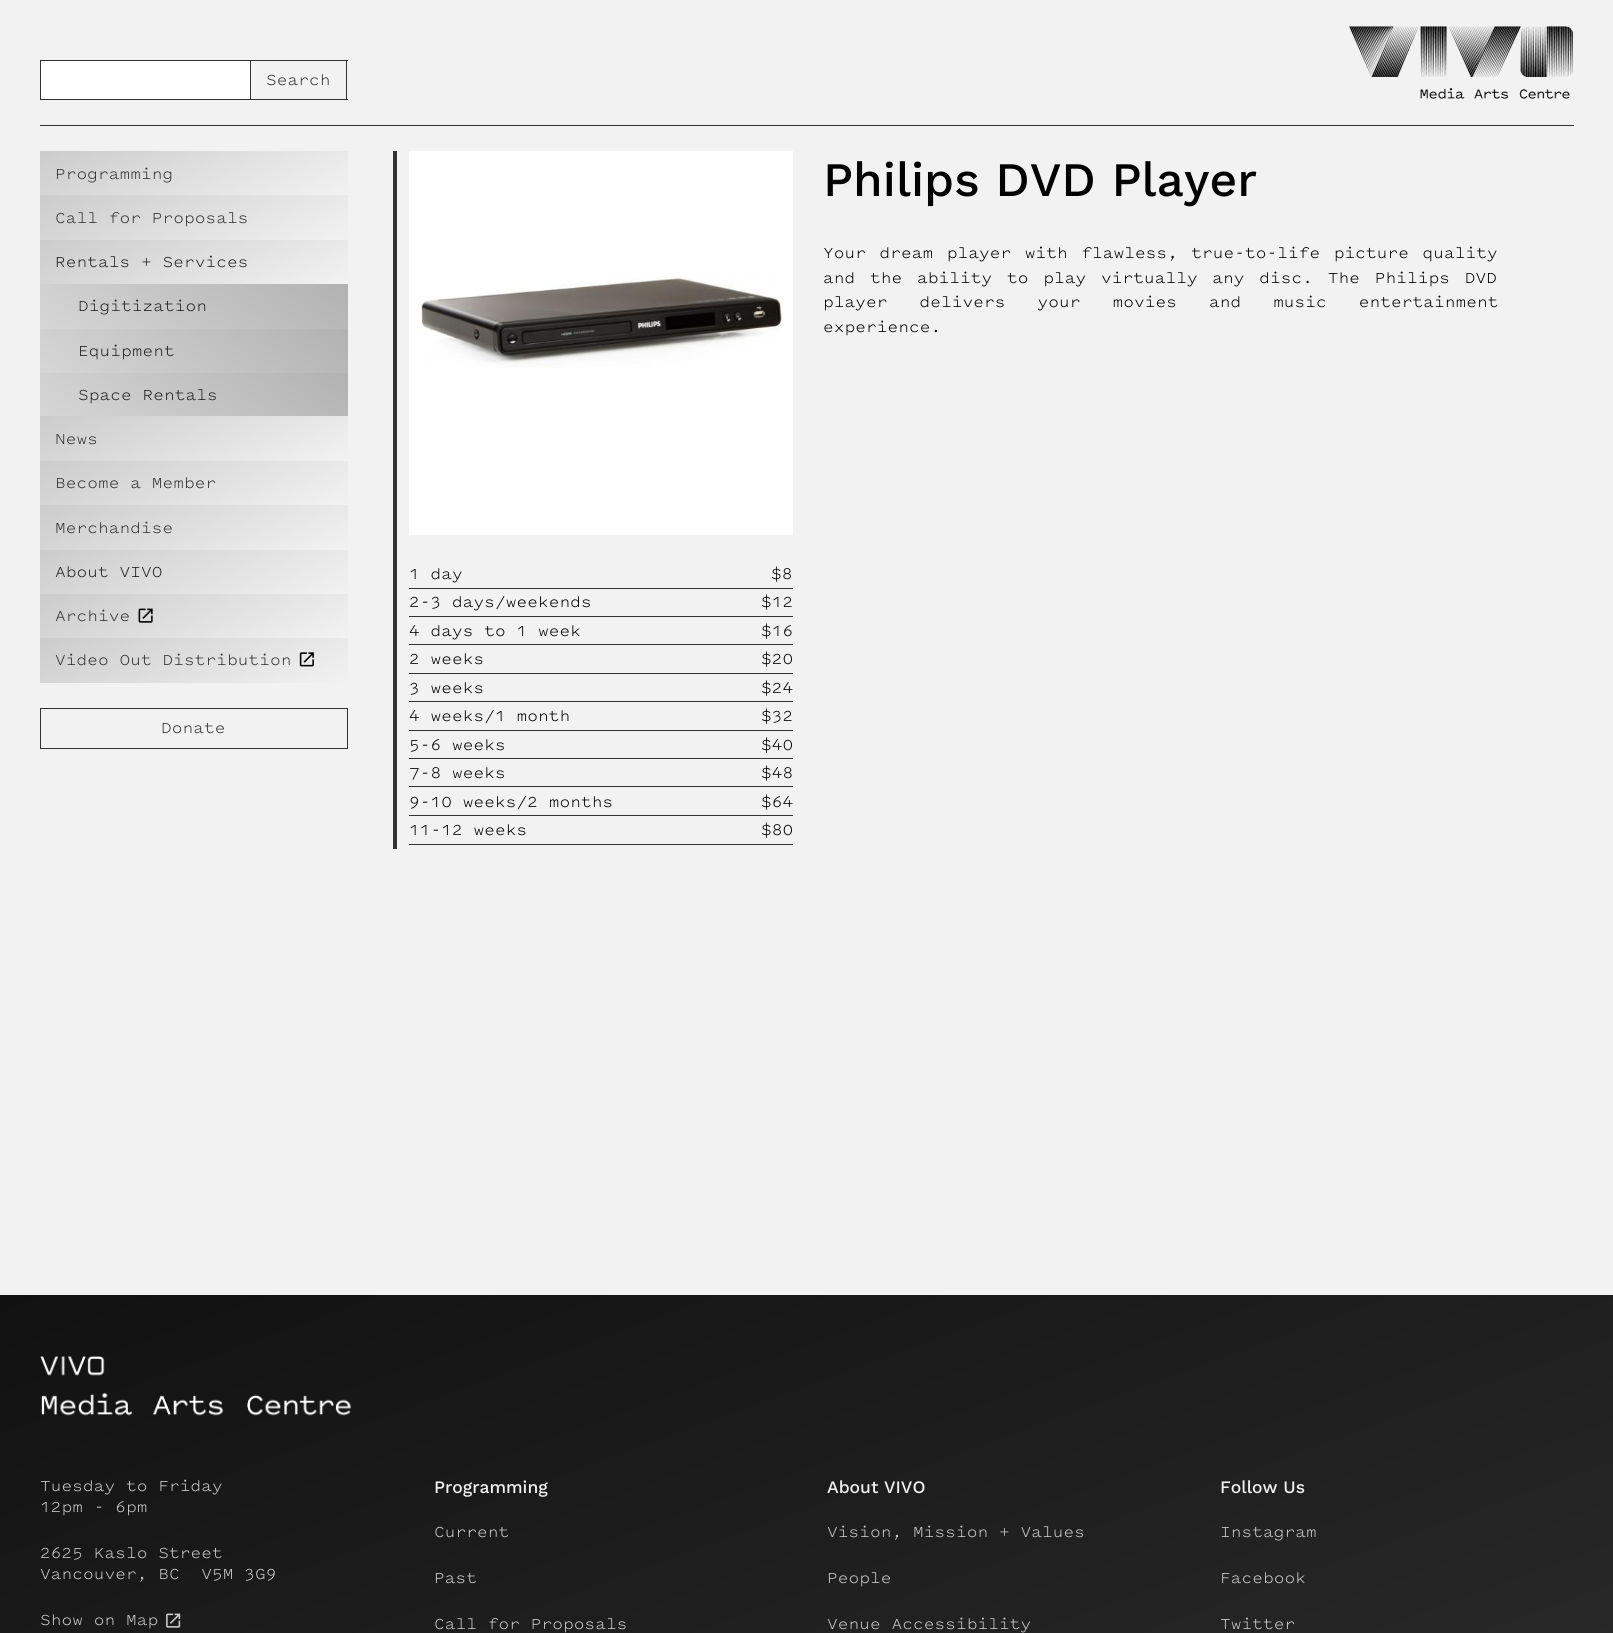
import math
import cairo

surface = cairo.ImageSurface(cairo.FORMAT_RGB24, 1613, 1633)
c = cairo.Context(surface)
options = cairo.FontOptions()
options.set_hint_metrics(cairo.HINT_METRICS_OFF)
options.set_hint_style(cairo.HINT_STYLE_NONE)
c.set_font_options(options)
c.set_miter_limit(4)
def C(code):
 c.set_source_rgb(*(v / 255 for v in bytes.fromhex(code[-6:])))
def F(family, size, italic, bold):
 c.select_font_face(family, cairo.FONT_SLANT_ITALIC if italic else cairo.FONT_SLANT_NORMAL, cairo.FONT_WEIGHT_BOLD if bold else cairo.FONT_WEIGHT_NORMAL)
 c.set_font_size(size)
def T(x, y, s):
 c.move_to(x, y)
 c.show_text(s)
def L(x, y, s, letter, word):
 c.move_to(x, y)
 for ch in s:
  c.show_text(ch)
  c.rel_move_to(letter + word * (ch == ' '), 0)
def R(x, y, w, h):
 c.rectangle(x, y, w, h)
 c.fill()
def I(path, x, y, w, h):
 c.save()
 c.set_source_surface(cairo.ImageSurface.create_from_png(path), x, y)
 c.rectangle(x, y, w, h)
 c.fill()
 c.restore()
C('f2f2f2')
c.paint()
C('333333')
R(40,125,1534,1)
C('ffffff')
c.rectangle(40.5,60.5,210,39)
c.fill_preserve()
C('333333')
c.set_line_width(1)
c.stroke()
R(251,60,97,1)
R(346,60,1,40)
R(251,99,97,1)
F('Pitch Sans',17.5,0,0)
T(266,85,'Search')
I('1.png',1349,26,225,73)
gradient = cairo.LinearGradient(158,96,230,250)
gradient.add_color_stop_rgba(0,0.8,0.8,0.8,1)
gradient.add_color_stop_rgba(1,0.949,0.949,0.949,1)
c.set_source(gradient)
R(40,151,308,44)
C('333333')
T(55,179,'Programming')
gradient = cairo.LinearGradient(158,140,230,295)
gradient.add_color_stop_rgba(0,0.8,0.8,0.8,1)
gradient.add_color_stop_rgba(1,0.949,0.949,0.949,1)
c.set_source(gradient)
R(40,195,308,45)
C('333333')
T(55,223,'Call for Proposals')
gradient = cairo.LinearGradient(158,185,230,339)
gradient.add_color_stop_rgba(0,0.8,0.8,0.8,1)
gradient.add_color_stop_rgba(1,0.949,0.949,0.949,1)
c.set_source(gradient)
R(40,240,308,44)
C('222222')
T(55,267,'Rentals + Services')
gradient = cairo.LinearGradient(263,218,125,395)
gradient.add_color_stop_rgba(0,0.698,0.698,0.698,1)
gradient.add_color_stop_rgba(1,0.839,0.839,0.839,1)
c.set_source(gradient)
R(40,284,308,45)
C('222222')
T(78,311,'Digitization')
gradient = cairo.LinearGradient(263,262,125,439)
gradient.add_color_stop_rgba(0,0.698,0.698,0.698,1)
gradient.add_color_stop_rgba(1,0.839,0.839,0.839,1)
c.set_source(gradient)
R(40,329,308,44)
C('222222')
T(78,356,'Equipment')
gradient = cairo.LinearGradient(263,306,125,483)
gradient.add_color_stop_rgba(0,0.698,0.698,0.698,1)
gradient.add_color_stop_rgba(1,0.839,0.839,0.839,1)
c.set_source(gradient)
R(40,373,308,43)
C('222222')
T(78,400,'Space Rentals')
gradient = cairo.LinearGradient(158,361,230,516)
gradient.add_color_stop_rgba(0,0.8,0.8,0.8,1)
gradient.add_color_stop_rgba(1,0.949,0.949,0.949,1)
c.set_source(gradient)
R(40,416,308,45)
C('333333')
T(55,444,'News')
gradient = cairo.LinearGradient(158,406,230,560)
gradient.add_color_stop_rgba(0,0.8,0.8,0.8,1)
gradient.add_color_stop_rgba(1,0.949,0.949,0.949,1)
c.set_source(gradient)
R(40,461,308,44)
C('333333')
T(55,488,'Become a Member')
gradient = cairo.LinearGradient(158,450,230,605)
gradient.add_color_stop_rgba(0,0.8,0.8,0.8,1)
gradient.add_color_stop_rgba(1,0.949,0.949,0.949,1)
c.set_source(gradient)
R(40,505,308,45)
C('333333')
T(55,533,'Merchandise')
gradient = cairo.LinearGradient(158,495,230,649)
gradient.add_color_stop_rgba(0,0.8,0.8,0.8,1)
gradient.add_color_stop_rgba(1,0.949,0.949,0.949,1)
c.set_source(gradient)
R(40,550,308,44)
C('222222')
T(55,577,'About VIVO')
gradient = cairo.LinearGradient(158,539,230,692)
gradient.add_color_stop_rgba(0,0.8,0.8,0.8,1)
gradient.add_color_stop_rgba(1,0.949,0.949,0.949,1)
c.set_source(gradient)
R(40,594,308,44)
C('333333')
T(55,621,'Archive')
I('2.png',138,608,15,15)
gradient = cairo.LinearGradient(158,583,230,737)
gradient.add_color_stop_rgba(0,0.8,0.8,0.8,1)
gradient.add_color_stop_rgba(1,0.949,0.949,0.949,1)
c.set_source(gradient)
R(40,638,308,45)
C('333333')
T(55,665,'Video Out Distribution')
I('3.png',299,652,15,15)
c.rectangle(40.5,708.5,307,40)
c.stroke()
T(161,733,'Donate')
F('Work Sans Medium',48,0,0)
C('000000')
T(823,196,'Philips DVD Player')
F('Pitch Sans',17.5,0,0)
L(823,258,'Your dream player with flawless, true-to-life picture quality',0,2.75)
L(823,283,'and the ability to play virtually any disc. The Philips DVD',0,4)
L(823,307,'player delivers your movies and music entertainment',0,21.25)
T(823,332,'experience.')
C('333333')
R(393,151,4,698)
C('ffffff')
R(409,151,384,384)
I('4.png',421,277,361,91)
C('333333')
R(409,588,384,1)
C('000000')
T(409,579,'1 day')
T(771,579,'$8')
C('333333')
R(409,616,384,1)
C('000000')
T(409,607,'2-3 days/weekends')
T(761,607,'$12')
C('333333')
R(409,644,384,1)
C('000000')
T(409,636,'4 days to 1 week')
T(761,636,'$16')
C('333333')
R(409,673,384,1)
C('000000')
T(409,664,'2 weeks')
T(761,664,'$20')
C('333333')
R(409,701,384,1)
C('000000')
T(409,693,'3 weeks')
T(761,693,'$24')
C('333333')
R(409,730,384,1)
C('000000')
T(409,721,'4 weeks/1 month')
T(761,721,'$32')
C('333333')
R(409,758,384,1)
C('000000')
T(409,750,'5-6 weeks')
T(761,750,'$40')
C('333333')
R(409,786,384,1)
C('000000')
T(409,778,'7-8 weeks')
T(761,778,'$48')
C('333333')
R(409,815,384,1)
C('000000')
T(409,807,'9-10 weeks/2 months')
T(761,807,'$64')
C('333333')
R(409,844,384,1)
C('000000')
T(409,835,'11-12 weeks')
T(761,835,'$80')
gradient = cairo.LinearGradient(584,1082,1030,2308)
gradient.add_color_stop_rgba(0,0.067,0.067,0.067,1)
gradient.add_color_stop_rgba(1,0.2,0.2,0.2,1)
c.set_source(gradient)
R(0,1295,1613,338)
I('5.png',40,1356,311,60)
C('cccccc')
T(40,1491,'Tuesday to Friday')
T(40,1512,'12pm - 6pm')
T(40,1558,'2625 Kaslo Street')
T(40,1579,'Vancouver, BC  V5M 3G9')
T(40,1625,'Show on Map')
I('6.png',166,1613,15,15)
F('Work Sans Medium',17.5,0,0)
C('f2f2f2')
T(434,1493,'Programming')
F('Pitch Sans',17.5,0,0)
C('cccccc')
T(434,1537,'Current')
T(434,1583,'Past')
T(434,1629,'Call for Proposals')
F('Work Sans Medium',17.5,0,0)
C('f2f2f2')
T(827,1493,'About VIVO')
F('Pitch Sans',17.5,0,0)
C('cccccc')
T(827,1537,'Vision, Mission + Values')
T(827,1583,'People')
T(827,1629,'Venue Accessibility')
F('Work Sans Medium',17.5,0,0)
C('f2f2f2')
T(1220,1493,'Follow Us')
F('Pitch Sans',17.5,0,0)
C('cccccc')
T(1220,1537,'Instagram')
T(1220,1583,'Facebook')
T(1220,1629,'Twitter')
surface.write_to_png('o.png')
